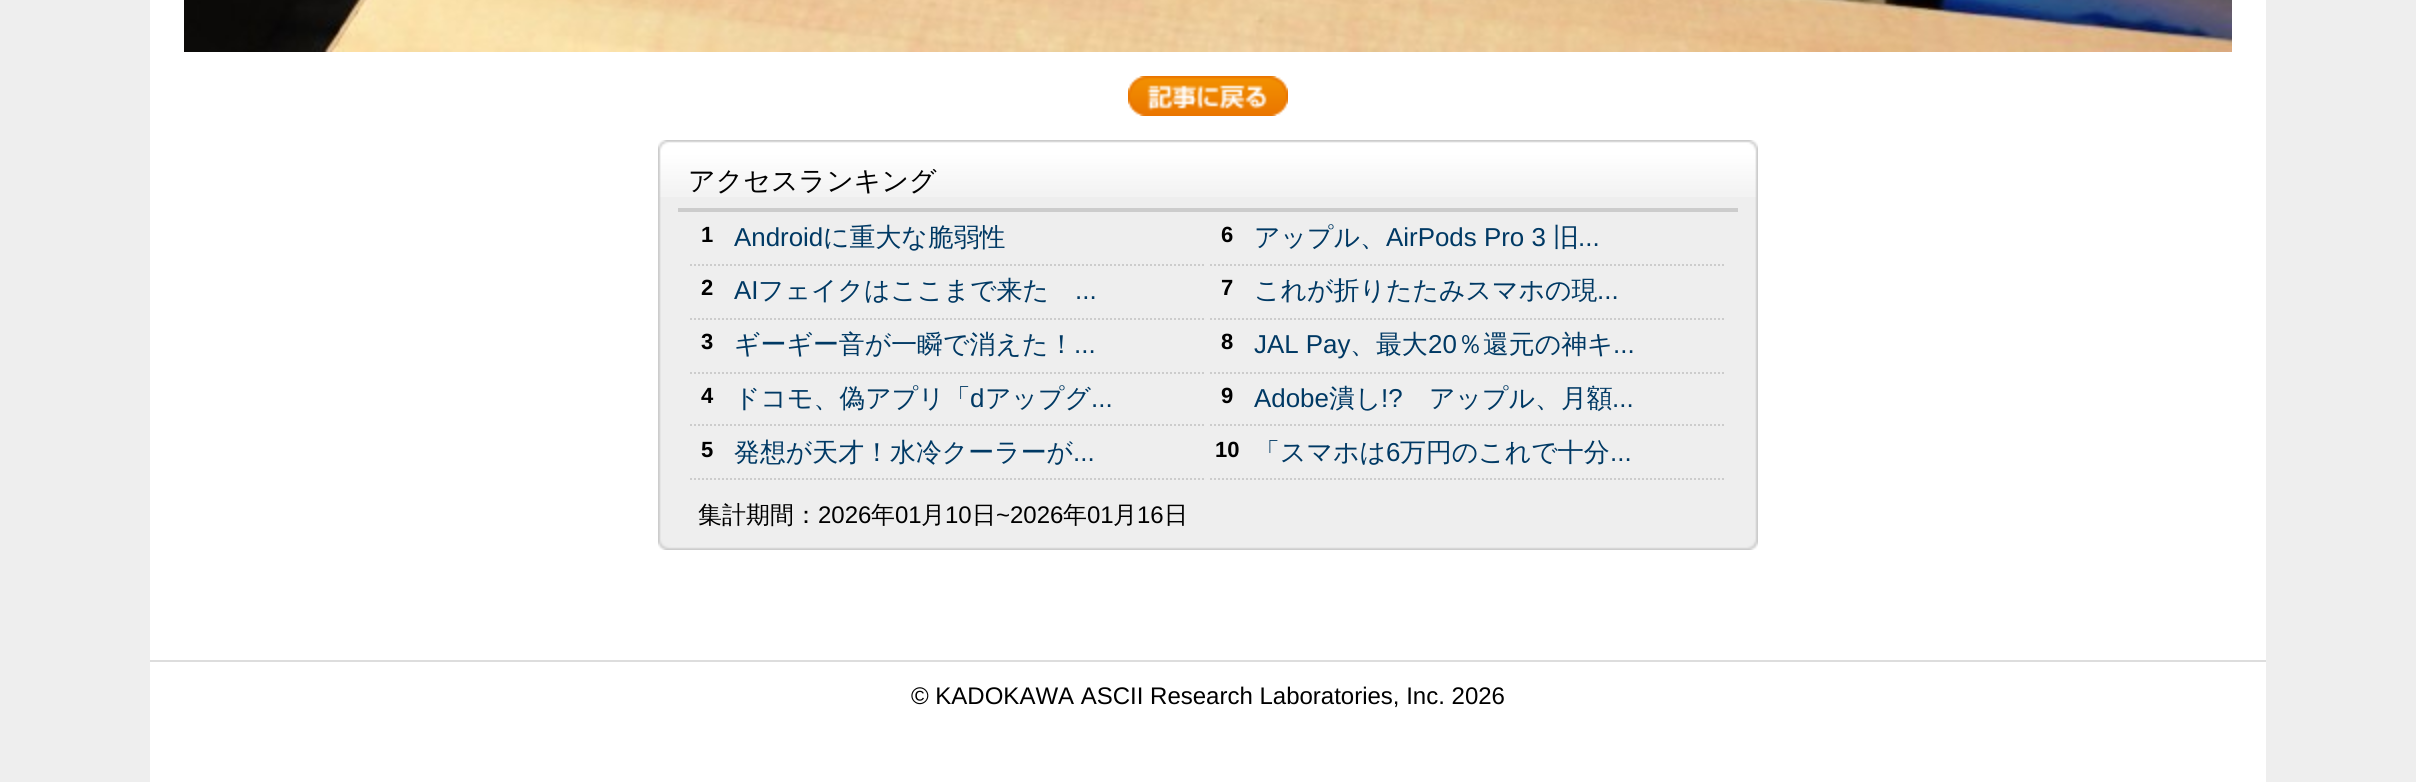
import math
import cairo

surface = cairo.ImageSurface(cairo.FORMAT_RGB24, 2416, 782)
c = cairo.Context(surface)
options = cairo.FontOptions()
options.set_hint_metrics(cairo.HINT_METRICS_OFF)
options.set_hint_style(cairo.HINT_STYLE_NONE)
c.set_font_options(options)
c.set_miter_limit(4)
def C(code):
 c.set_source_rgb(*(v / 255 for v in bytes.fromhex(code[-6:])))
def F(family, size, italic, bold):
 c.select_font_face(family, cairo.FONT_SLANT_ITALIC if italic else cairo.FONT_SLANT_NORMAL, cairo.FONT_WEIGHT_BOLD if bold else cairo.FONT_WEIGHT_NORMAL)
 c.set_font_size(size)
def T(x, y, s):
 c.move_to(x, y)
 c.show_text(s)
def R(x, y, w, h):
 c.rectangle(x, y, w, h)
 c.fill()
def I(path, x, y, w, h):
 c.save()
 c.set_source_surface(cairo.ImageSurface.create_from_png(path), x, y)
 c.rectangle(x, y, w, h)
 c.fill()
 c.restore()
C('eeeeee')
c.paint()
C('ffffff')
R(150,0,2116,782)
I('1.png',184,0,2048,52)
I('2.png',1128,76,160,40)
I('3.png',658,197,1100,353)
I('4.png',658,140,1100,57)
C('cccccc')
R(678,208,1060,4)
F('WenQuanYi Zen Hei Medium',27,0,0)
C('000000')
T(688,190,'アクセスランキング')
c.new_path()
c.move_to(690,265)
c.line_to(1206,265)
C('cccccc')
c.set_dash([2,2])
c.stroke()
F('Liberation Sans',22,0,1)
C('000000')
T(701,242,'1')
F('Liberation Sans',25.9,0,0)
C('003964')
T(734,246,'Android')
F('WenQuanYi Zen Hei Medium',25.9,0,0)
T(823,246,'に重大な脆弱性')
c.new_path()
c.move_to(690,319)
c.line_to(1206,319)
C('cccccc')
c.stroke()
F('Liberation Sans',22,0,1)
C('000000')
T(701,295,'2')
F('Liberation Sans',25.9,0,0)
C('003964')
T(734,299,'AI')
F('WenQuanYi Zen Hei Medium',25.9,0,0)
T(758,299,'フェイクはここまで来た')
F('Liberation Sans',25.9,0,0)
T(1075,299,'...')
c.new_path()
c.move_to(690,373)
c.line_to(1206,373)
C('cccccc')
c.stroke()
F('Liberation Sans',22,0,1)
C('000000')
T(701,349,'3')
F('WenQuanYi Zen Hei Medium',25.9,0,0)
C('003964')
T(734,353,'ギーギー音が一瞬で消えた！')
F('Liberation Sans',25.9,0,0)
T(1074,353,'...')
c.new_path()
c.move_to(690,425)
c.line_to(1206,425)
C('cccccc')
c.stroke()
F('Liberation Sans',22,0,1)
C('000000')
T(701,403,'4')
F('WenQuanYi Zen Hei Medium',25.9,0,0)
C('003964')
T(734,407,'ドコモ、偽アプリ「')
F('Liberation Sans',25.9,0,0)
T(970,407,'d')
F('WenQuanYi Zen Hei Medium',25.9,0,0)
T(985,407,'アップグ')
F('Liberation Sans',25.9,0,0)
T(1091,407,'...')
c.new_path()
c.move_to(690,479)
c.line_to(1206,479)
C('cccccc')
c.stroke()
F('Liberation Sans',22,0,1)
C('000000')
T(701,457,'5')
F('WenQuanYi Zen Hei Medium',25.9,0,0)
C('003964')
T(734,461,'発想が天才！水冷クーラーが')
F('Liberation Sans',25.9,0,0)
T(1073,461,'...')
c.new_path()
c.move_to(1210,265)
c.line_to(1726,265)
C('cccccc')
c.stroke()
F('Liberation Sans',22,0,1)
C('000000')
T(1221,242,'6')
F('WenQuanYi Zen Hei Medium',25.9,0,0)
C('003964')
T(1254,246,'アップル、')
F('Liberation Sans',25.9,0,0)
T(1386,246,'AirPods Pro 3')
F('WenQuanYi Zen Hei Medium',25.9,0,0)
T(1553,246,'旧')
F('Liberation Sans',25.9,0,0)
T(1578,246,'...')
c.new_path()
c.move_to(1210,319)
c.line_to(1726,319)
C('cccccc')
c.stroke()
F('Liberation Sans',22,0,1)
C('000000')
T(1221,295,'7')
F('WenQuanYi Zen Hei Medium',25.9,0,0)
C('003964')
T(1254,299,'これが折りたたみスマホの現')
F('Liberation Sans',25.9,0,0)
T(1597,299,'...')
c.new_path()
c.move_to(1210,373)
c.line_to(1726,373)
C('cccccc')
c.stroke()
F('Liberation Sans',22,0,1)
C('000000')
T(1221,349,'8')
F('Liberation Sans',25.9,0,0)
C('003964')
T(1254,353,'JAL Pay')
F('WenQuanYi Zen Hei Medium',25.9,0,0)
T(1350,353,'、最大')
F('Liberation Sans',25.9,0,0)
T(1428,353,'20')
F('WenQuanYi Zen Hei Medium',25.9,0,0)
T(1457,353,'％還元の神キ')
F('Liberation Sans',25.9,0,0)
T(1613,353,'...')
c.new_path()
c.move_to(1210,425)
c.line_to(1726,425)
C('cccccc')
c.stroke()
F('Liberation Sans',22,0,1)
C('000000')
T(1221,403,'9')
F('Liberation Sans',25.9,0,0)
C('003964')
T(1254,407,'Adobe')
F('WenQuanYi Zen Hei Medium',25.9,0,0)
T(1329,407,'潰し')
F('Liberation Sans',25.9,0,0)
T(1381,407,'!?')
F('WenQuanYi Zen Hei Medium',25.9,0,0)
T(1429,407,'アップル、月額')
F('Liberation Sans',25.9,0,0)
T(1612,407,'...')
c.new_path()
c.move_to(1210,479)
c.line_to(1726,479)
C('cccccc')
c.stroke()
F('Liberation Sans',22,0,1)
C('000000')
T(1215,457,'10')
F('WenQuanYi Zen Hei Medium',25.9,0,0)
C('003964')
T(1254,461,'「スマホは')
F('Liberation Sans',25.9,0,0)
T(1386,461,'6')
F('WenQuanYi Zen Hei Medium',25.9,0,0)
T(1400,461,'万円のこれで十分')
F('Liberation Sans',25.9,0,0)
T(1610,461,'...')
F('WenQuanYi Zen Hei Medium',24,0,0)
C('000000')
T(698,523,'集計期間：')
F('Liberation Sans',24,0,0)
T(818,523,'2026')
F('WenQuanYi Zen Hei Medium',24,0,0)
T(871,523,'年')
F('Liberation Sans',24,0,0)
T(895,523,'01')
F('WenQuanYi Zen Hei Medium',24,0,0)
T(921,523,'月')
F('Liberation Sans',24,0,0)
T(945,523,'10')
F('WenQuanYi Zen Hei Medium',24,0,0)
T(972,523,'日')
F('Liberation Sans',24,0,0)
T(996,523,'~2026')
F('WenQuanYi Zen Hei Medium',24,0,0)
T(1063,523,'年')
F('Liberation Sans',24,0,0)
T(1087,523,'01')
F('WenQuanYi Zen Hei Medium',24,0,0)
T(1113,523,'月')
F('Liberation Sans',24,0,0)
T(1137,523,'16')
F('WenQuanYi Zen Hei Medium',24,0,0)
T(1164,523,'日')
C('dddddd')
R(150,660,2116,2)
F('Liberation Sans',24,0,0)
C('000000')
T(911,704,'© KADOKAWA ASCII Research Laboratories, Inc. 2026')
surface.write_to_png('o.png')
